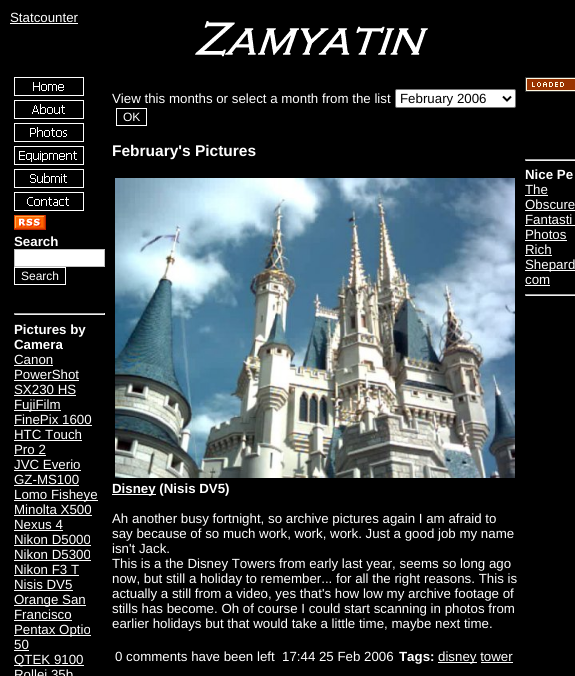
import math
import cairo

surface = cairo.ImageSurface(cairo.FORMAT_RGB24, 575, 676)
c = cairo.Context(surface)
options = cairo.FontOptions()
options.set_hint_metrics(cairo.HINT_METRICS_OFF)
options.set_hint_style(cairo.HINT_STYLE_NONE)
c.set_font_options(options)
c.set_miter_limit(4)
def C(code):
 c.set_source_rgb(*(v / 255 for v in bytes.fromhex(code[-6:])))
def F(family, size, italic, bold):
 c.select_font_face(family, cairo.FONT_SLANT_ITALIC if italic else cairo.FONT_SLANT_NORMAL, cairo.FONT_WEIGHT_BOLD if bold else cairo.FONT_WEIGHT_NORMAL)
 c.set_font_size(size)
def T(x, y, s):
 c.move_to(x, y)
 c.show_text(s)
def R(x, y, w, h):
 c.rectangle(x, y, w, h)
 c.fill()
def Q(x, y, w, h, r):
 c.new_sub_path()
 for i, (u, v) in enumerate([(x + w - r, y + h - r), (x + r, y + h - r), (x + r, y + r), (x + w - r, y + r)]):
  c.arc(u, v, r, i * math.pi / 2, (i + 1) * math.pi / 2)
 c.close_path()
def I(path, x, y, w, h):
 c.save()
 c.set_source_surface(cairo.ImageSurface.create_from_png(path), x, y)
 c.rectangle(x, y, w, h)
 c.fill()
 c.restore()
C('000000')
c.paint()
F('Liberation Sans',13.3,0,0)
C('ffffff')
T(10,22,'Statcounter')
R(10,23,68,1)
I('1.png',195,21,233,36)
I('2.png',14,77,70,19)
I('3.png',14,100,70,19)
I('4.png',14,123,70,19)
I('5.png',14,146,70,19)
I('6.png',14,169,70,19)
I('7.png',14,192,70,19)
I('8.png',14,215,32,15)
F('Liberation Sans',13.3,0,1)
T(14,246,'Search')
c.rectangle(14.5,249.5,90,17)
c.fill_preserve()
C('c0c0c0')
c.set_line_width(1)
c.stroke()
c.rectangle(14.5,267.5,51,17)
C('ffffff')
c.stroke()
F('Liberation Sans',12,0,0)
T(21,280,'Search')
C('9f9f9f')
R(14,313,91,1)
C('eeeeee')
R(104,313,1,2)
R(14,314,91,1)
C('9f9f9f')
R(14,313,1,2)
F('Liberation Sans',13.3,0,1)
C('ffffff')
T(14,334,'Pictures by')
T(14,349,'Camera')
F('Liberation Sans',13.3,0,0)
T(14,364,'Canon')
R(14,365,39,1)
T(14,379,'PowerShot')
R(14,380,65,1)
T(14,394,'SX230 HS')
R(14,395,62,1)
R(14,410,47,1)
T(14,409,'FujiFilm')
T(14,424,'FinePix 1600')
R(14,425,78,1)
T(14,439,'HTC Touch')
R(14,440,68,1)
T(14,454,'Pro 2')
R(14,455,32,1)
T(14,469,'JVC Everio')
R(14,470,67,1)
T(14,484,'GZ-MS100')
R(14,485,65,1)
R(14,500,84,1)
T(14,499,'Lomo Fisheye')
T(14,514,'Minolta X500')
R(14,515,78,1)
T(14,529,'Nexus 4')
R(14,530,49,1)
T(14,544,'Nikon D5000')
R(14,545,77,1)
T(14,559,'Nikon D5300')
R(14,560,77,1)
T(14,574,'Nikon F3 T')
R(14,575,65,1)
T(14,589,'Nisis DV5')
R(14,590,59,1)
R(14,605,72,1)
T(14,604,'Orange San')
T(14,619,'Francisco')
R(14,620,58,1)
R(14,635,77,1)
T(14,634,'Pentax Optio')
T(14,649,'50')
R(14,650,15,1)
R(14,665,70,1)
T(14,664,'QTEK 9100')
T(14,679,'Rollei 35b')
T(112,103,'View this months or select a month from the list')
Q(395.5,89.5,120,18,1.5)
c.fill_preserve()
C('767676')
c.stroke()
c.new_path()
c.move_to(503,96.5)
c.line_to(507,100.5)
c.line_to(511,96.5)
C('000000')
c.set_line_width(2)
c.stroke()
T(400,103,'February 2006')
c.rectangle(116.5,108.5,30,17)
C('ffffff')
c.set_line_width(1)
c.stroke()
F('Liberation Sans',12,0,0)
T(123,121,'OK')
F('Liberation Sans',15.5,0,1)
T(112,156,'February\'s Pictures')
I('9.png',115,178,400,300)
R(112,494,44,1)
F('Liberation Sans',13.3,0,1)
T(112,493,'Disney (Nisis DV5)')
F('Liberation Sans',13.3,0,0)
T(112,523,'Ah another busy fortnight, so archive pictures again I am afraid to')
T(112,538,'say because of so much work, work, work. Just a good job my name')
T(112,553,'isn\'t Jack.')
T(112,568,'This is a the Disney Towers from early last year, seems so long ago')
T(112,583,'now, but still a holiday to remember... for all the right reasons. This is')
T(112,598,'actually a still from a video, yes that\'s how low my archive footage of')
T(112,613,'stills has become. Oh of course I could start scanning in photos from')
T(112,628,'earlier holidays but that would take a little time, maybe next time.')
T(115,661,'0 comments have been left')
T(282,661,'17:44 25 Feb 2006')
F('Liberation Sans',13.3,0,1)
T(399,661,'Tags:')
R(438,662,39,1)
F('Liberation Sans',13.3,0,0)
T(438,661,'disney tower')
R(481,662,32,1)
I('10.png',525,77,50,15)
C('9f9f9f')
R(525,159,50,1)
C('eeeeee')
R(525,160,50,1)
C('9f9f9f')
R(525,159,1,2)
F('Liberation Sans',13.3,0,1)
C('ffffff')
T(525,179,'Nice Pe')
F('Liberation Sans',13.3,0,0)
T(525,194,'The')
R(525,195,23,1)
T(525,209,'Obscure')
R(525,210,50,1)
T(525,224,'Fantasti')
R(525,225,50,1)
T(525,239,'Photos')
R(525,240,42,1)
T(525,254,'Rich')
R(525,255,27,1)
R(525,270,50,1)
T(525,269,'Shepard')
T(525,284,'com')
R(525,285,25,1)
C('9f9f9f')
R(525,294,50,1)
C('eeeeee')
R(525,295,50,1)
C('9f9f9f')
R(525,294,1,2)
surface.write_to_png('o.png')
